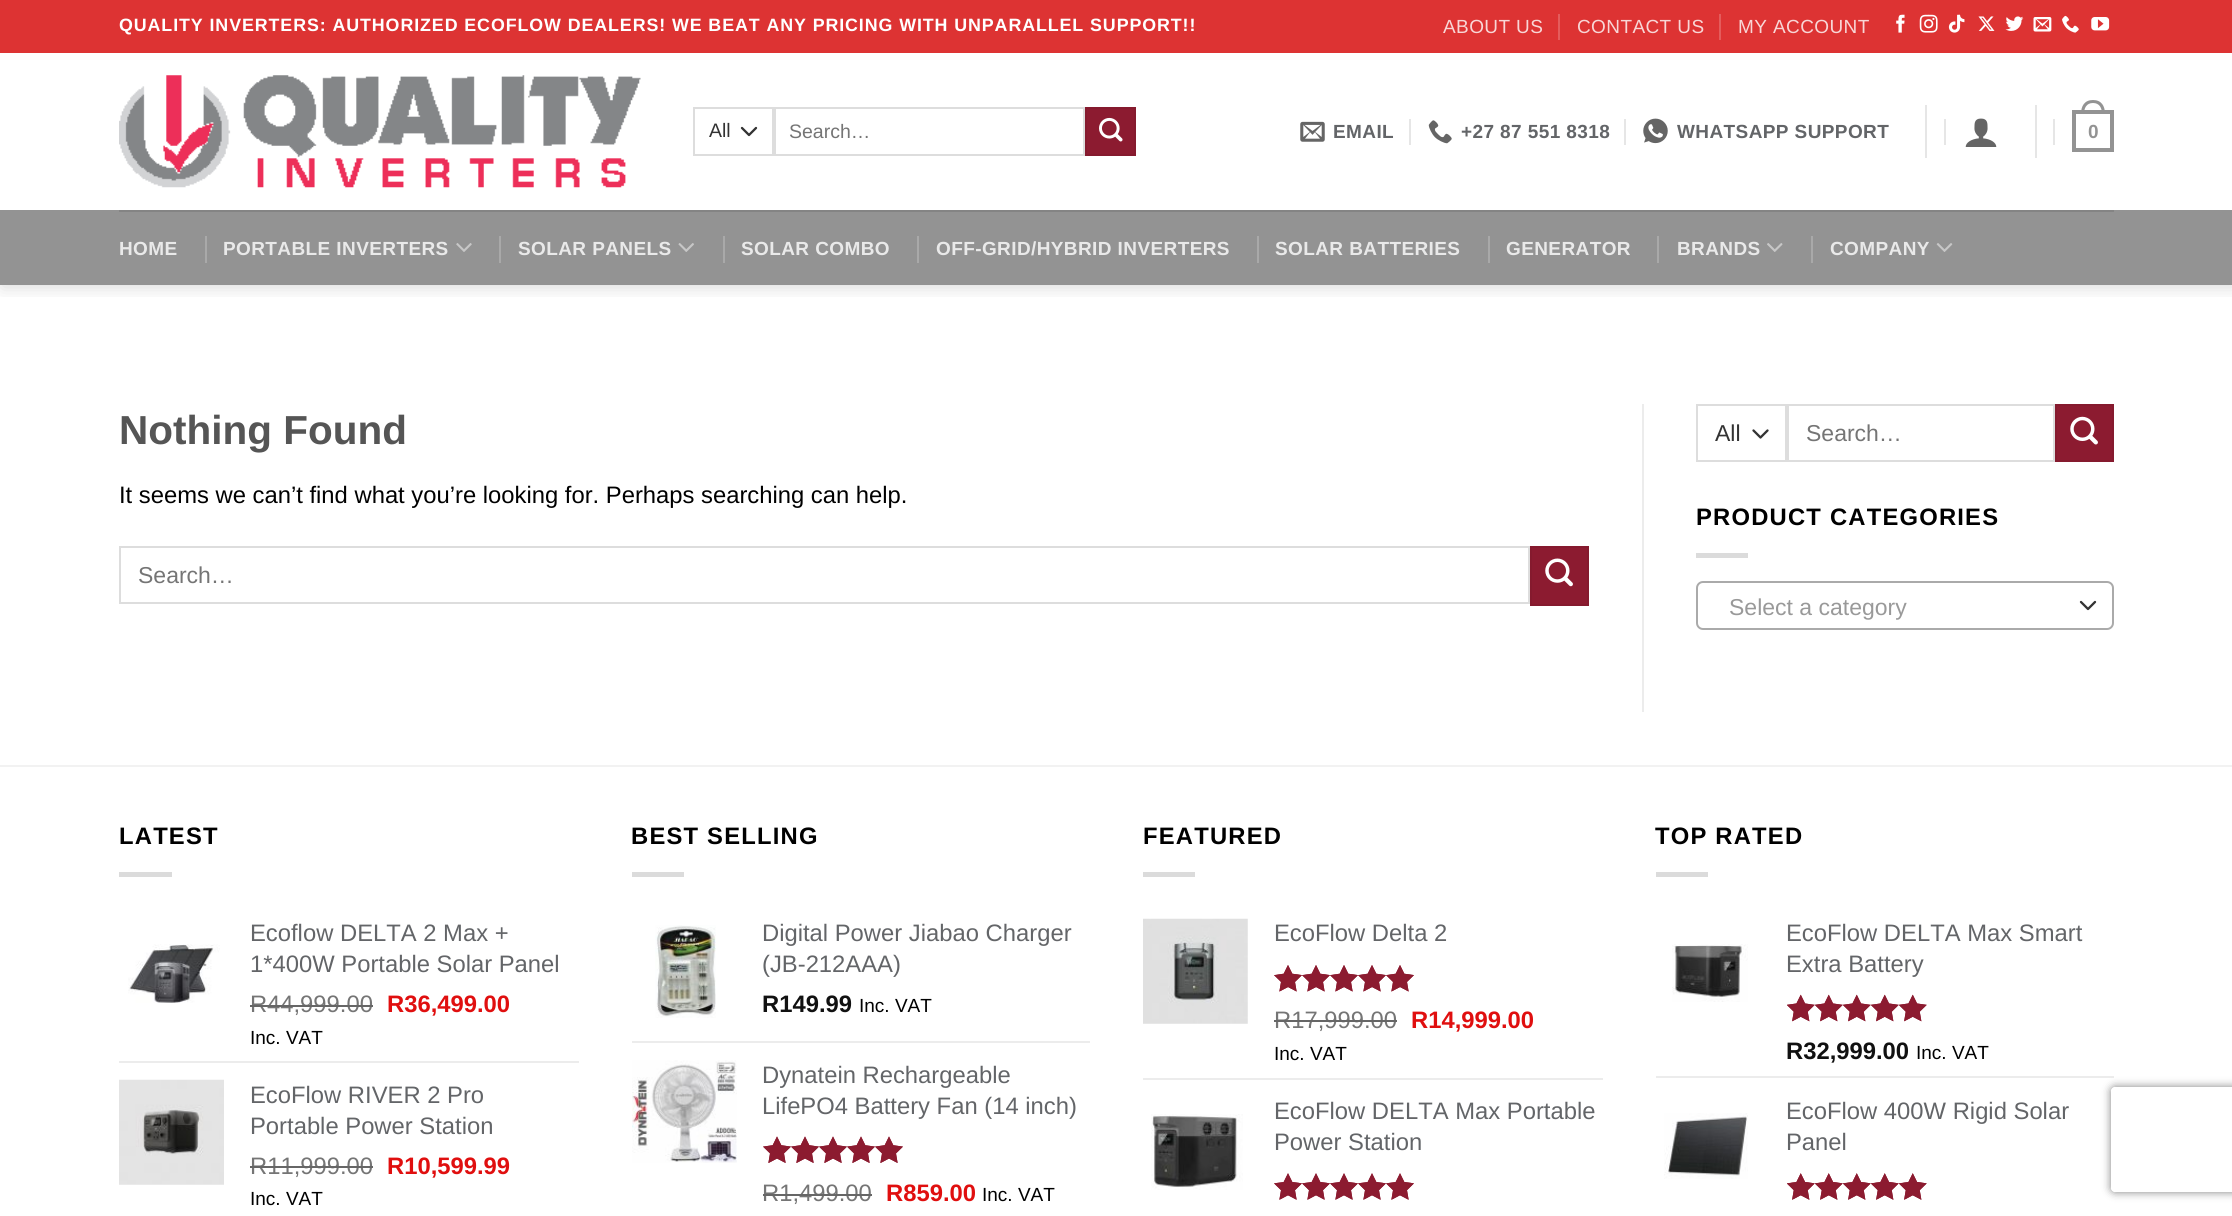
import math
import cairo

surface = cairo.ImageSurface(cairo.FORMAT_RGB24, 2232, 1216)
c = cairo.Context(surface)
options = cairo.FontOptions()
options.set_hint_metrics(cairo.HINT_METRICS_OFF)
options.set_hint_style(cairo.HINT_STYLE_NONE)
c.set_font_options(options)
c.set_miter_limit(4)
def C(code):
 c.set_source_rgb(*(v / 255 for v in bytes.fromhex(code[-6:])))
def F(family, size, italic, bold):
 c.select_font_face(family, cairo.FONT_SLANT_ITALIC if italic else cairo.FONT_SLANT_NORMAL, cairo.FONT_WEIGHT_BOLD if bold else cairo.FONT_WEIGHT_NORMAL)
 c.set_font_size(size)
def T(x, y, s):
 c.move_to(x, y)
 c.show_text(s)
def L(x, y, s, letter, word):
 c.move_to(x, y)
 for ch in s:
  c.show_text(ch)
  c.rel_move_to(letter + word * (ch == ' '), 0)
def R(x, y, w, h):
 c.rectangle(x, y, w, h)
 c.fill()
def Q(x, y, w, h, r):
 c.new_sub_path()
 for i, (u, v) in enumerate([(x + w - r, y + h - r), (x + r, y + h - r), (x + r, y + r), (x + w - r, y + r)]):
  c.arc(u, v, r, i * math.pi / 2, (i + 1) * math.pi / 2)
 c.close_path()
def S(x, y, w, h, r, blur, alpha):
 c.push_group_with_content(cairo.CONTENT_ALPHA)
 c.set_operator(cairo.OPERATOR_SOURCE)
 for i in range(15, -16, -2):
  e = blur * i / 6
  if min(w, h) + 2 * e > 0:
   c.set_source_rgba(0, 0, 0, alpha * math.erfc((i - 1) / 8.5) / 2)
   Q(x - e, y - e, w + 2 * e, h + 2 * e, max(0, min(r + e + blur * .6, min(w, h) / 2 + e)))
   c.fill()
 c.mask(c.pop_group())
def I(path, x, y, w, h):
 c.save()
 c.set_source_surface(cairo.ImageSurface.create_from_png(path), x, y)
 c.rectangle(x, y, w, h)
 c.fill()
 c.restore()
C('ffffff')
c.paint()
c.save()
c.rectangle(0,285,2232,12)
c.clip()
C('000000')
S(2,2,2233,285,0,9,.15)
c.restore()
C('dd3333')
R(0,0,2232,53)
F('Liberation Sans',17.85,0,1)
C('ffffff')
L(119,31,'QUALITY INVERTERS: AUTHORIZED ECOFLOW DEALERS! WE BEAT ANY PRICING WITH UNPARALLEL SUPPORT!!',.9,0)
F('Liberation Sans',19,0,0)
C('f8d6d6')
L(1443,33,'ABOUT US',.4,0)
C('e45c5c')
R(1558,14,2,26)
C('f8d6d6')
L(1577,33,'CONTACT US',.4,0)
C('e45c5c')
R(1719,14,2,26)
C('f8d6d6')
L(1738,33,'MY ACCOUNT',.4,0)
I('1.png',1896,14,9,19)
I('2.png',1919,14,19,19)
I('3.png',1948,14,17,19)
I('4.png',1978,16,17,15)
I('5.png',2005,16,19,15)
I('6.png',2033,17,19,15)
I('7.png',2062,15,17,18)
I('8.png',2091,17,19,14)
I('9.png',119,75,522,113)
c.new_path()
c.move_to(742,128)
c.line_to(749,135)
c.line_to(756,128)
C('333333')
c.set_line_width(2.3)
c.set_line_cap(cairo.LINE_CAP_ROUND)
c.set_line_join(cairo.LINE_JOIN_ROUND)
c.stroke()
c.rectangle(694,108,79,47)
C('dddddd')
c.set_line_width(2)
c.set_line_cap(cairo.LINE_CAP_BUTT)
c.set_line_join(cairo.LINE_JOIN_MITER)
c.stroke()
F('Liberation Sans',19.5,0,0)
C('333333')
T(709,137,'All')
c.rectangle(775,108,309,47)
C('dddddd')
c.stroke()
C('757575')
T(789,138,'Search…')
C('8c1b30')
c.rectangle(1086,108,49,47)
c.fill_preserve()
C('851a2e')
c.stroke()
I('10.png',1099,117,24,25)
I('11.png',1300,121,25,21)
F('Liberation Sans',19,0,1)
C('636568')
L(1333,138,'EMAIL',.4,0)
C('e6e6e6')
R(1409,119,2,26)
I('12.png',1428,120,24,24)
C('636568')
L(1461,138,'+27 87 551 8318',.4,0)
C('e6e6e6')
R(1624,119,2,26)
I('13.png',1643,118,25,26)
C('636568')
L(1677,138,'WHATSAPP SUPPORT',.4,0)
C('e6e6e6')
R(1925,105,2,53)
R(1944,119,2,26)
I('14.png',1965,118,32,29)
R(2035,105,2,53)
R(2053,119,2,26)
c.rectangle(2074,112,38,38)
C('939393')
c.set_line_width(4)
c.stroke()
c.set_fill_rule(cairo.FILL_RULE_EVEN_ODD)
c.new_path()
c.move_to(2093,100)
c.curve_to(2101.5,100,2105,106,2105,114)
c.line_to(2081,114)
c.curve_to(2081,106,2084.5,100,2093,100)
c.close_path()
c.move_to(2093,103)
c.curve_to(2099.5,103,2102,108,2102,114)
c.line_to(2084,114)
c.curve_to(2084,108,2086.5,103,2093,103)
c.close_path()
c.fill()
L(2088,138,'0',.4,0)
R(0,210,2232,75)
C('848484')
R(119,210,1995,2)
C('e9e9e9')
L(119,255,'HOME',.4,0)
C('a9a9a9')
R(205,236,2,27)
C('e9e9e9')
L(223,255,'PORTABLE INVERTERS',.4,0)
I('15.png',456,243,16,9)
C('a9a9a9')
R(499,236,2,27)
C('e9e9e9')
L(518,255,'SOLAR PANELS',.4,0)
I('16.png',678,243,16,9)
C('a9a9a9')
R(723,236,2,27)
C('e9e9e9')
L(741,255,'SOLAR COMBO',.4,0)
C('a9a9a9')
R(917,236,2,27)
C('e9e9e9')
L(936,255,'OFF-GRID/HYBRID INVERTERS',.4,0)
C('a9a9a9')
R(1257,236,2,27)
C('e9e9e9')
L(1275,255,'SOLAR BATTERIES',.4,0)
C('a9a9a9')
R(1488,236,2,27)
C('e9e9e9')
L(1506,255,'GENERATOR',.4,0)
C('a9a9a9')
R(1657,236,2,27)
C('e9e9e9')
L(1677,255,'BRANDS',.4,0)
I('17.png',1767,243,16,9)
C('a9a9a9')
R(1811,236,2,27)
C('e9e9e9')
L(1830,255,'COMPANY',.4,0)
I('18.png',1936,243,17,9)
F('Liberation Sans',40.5,0,1)
C('555555')
T(119,444,'Nothing Found')
F('Liberation Sans',23.8,0,0)
C('000000')
T(119,503,'It seems we can’t find what you’re looking for. Perhaps searching can help.')
c.rectangle(120,547,1409,56)
C('dddddd')
c.set_line_width(2)
c.stroke()
F('Liberation Sans',23,0,0)
C('757575')
T(138,583,'Search…')
C('8c1b30')
c.rectangle(1531,547,57,58)
c.fill_preserve()
C('851a2e')
c.stroke()
I('19.png',1545,558,28,29)
C('ececec')
R(1642,404,2,308)
c.new_path()
c.move_to(1753.5,430.5)
c.line_to(1760.5,437.5)
c.line_to(1767.5,430.5)
C('333333')
c.set_line_width(2.3)
c.set_line_cap(cairo.LINE_CAP_ROUND)
c.set_line_join(cairo.LINE_JOIN_ROUND)
c.stroke()
c.rectangle(1697,405,89,56)
C('dddddd')
c.set_line_width(2)
c.set_line_cap(cairo.LINE_CAP_BUTT)
c.set_line_join(cairo.LINE_JOIN_MITER)
c.stroke()
C('333333')
T(1715,441,'All')
c.rectangle(1788,405,266,56)
C('dddddd')
c.stroke()
C('757575')
T(1806,441,'Search…')
C('8c1b30')
c.rectangle(2056,405,57,56)
c.fill_preserve()
C('851a2e')
c.stroke()
I('20.png',2070,416,28,29)
F('Liberation Sans',23.8,0,1)
C('000000')
L(1696,525,'PRODUCT CATEGORIES',1.2,0)
C('dbdbdb')
R(1696,553,52,5)
c.new_path()
c.move_to(2081,602)
c.line_to(2088,609)
c.line_to(2095,602)
C('333333')
c.set_line_width(2.3)
c.set_line_cap(cairo.LINE_CAP_ROUND)
c.set_line_join(cairo.LINE_JOIN_ROUND)
c.stroke()
Q(1697,582,416,47,6)
C('aaaaaa')
c.set_line_width(2)
c.set_line_cap(cairo.LINE_CAP_BUTT)
c.set_line_join(cairo.LINE_JOIN_MITER)
c.stroke()
F('Liberation Sans',23,0,0)
C('999999')
T(1729,615,'Select a category')
C('f2f2f2')
R(0,765,2232,2)
F('Liberation Sans',23.8,0,1)
C('000000')
L(119,844,'LATEST',1.2,0)
C('dbdbdb')
R(119,872,53,5)
F('Liberation Sans',23.8,0,0)
C('636568')
T(250,941,'Ecoflow DELTA 2 Max +')
I('21.png',128,944,92,59)
T(250,972,'1*400W Portable Solar Panel')
C('757575')
T(250,1012,'R')
C('666666')
R(250,1005,18,2)
C('757575')
T(267,1012,'44,999.00')
C('666666')
R(268,1005,105,2)
F('Liberation Sans',23.8,0,1)
C('e00f0f')
T(387,1012,'R36,499.00')
F('Liberation Sans',19,0,0)
C('000000')
T(250,1044,'Inc. VAT')
C('ececec')
R(119,1061,460,2)
I('22.png',119,1079,105,106)
F('Liberation Sans',23.8,0,0)
C('636568')
T(250,1103,'EcoFlow RIVER 2 Pro')
T(250,1134,'Portable Power Station')
C('757575')
T(250,1174,'R11,999.00')
C('666666')
R(250,1166,123,2)
F('Liberation Sans',23.8,0,1)
C('e00f0f')
T(387,1174,'R10,599.99')
F('Liberation Sans',19,0,0)
C('000000')
T(250,1205,'Inc. VAT')
F('Liberation Sans',23.8,0,1)
L(631,844,'BEST SELLING',1.2,0)
C('dbdbdb')
R(632,872,52,5)
I('23.png',655,925,61,93)
F('Liberation Sans',23.8,0,0)
C('636568')
T(762,941,'Digital Power Jiabao Charger')
T(762,972,'(JB-212AAA)')
F('Liberation Sans',23.8,0,1)
C('111111')
T(762,1012,'R149.99')
F('Liberation Sans',19,0,0)
C('000000')
T(859,1012,'Inc. VAT')
C('ececec')
R(632,1041,458,2)
I('24.png',632,1060,105,103)
F('Liberation Sans',23.8,0,0)
C('636568')
T(762,1083,'Dynatein Rechargeable')
T(762,1114,'LifePO4 Battery Fan (14 inch)')
I('25.png',763,1136,140,27)
I('26.png',763,1136,140,27)
C('757575')
T(762,1201,'R1,499.00')
C('666666')
R(763,1194,109,2)
F('Liberation Sans',23.8,0,1)
C('e00f0f')
T(886,1201,'R859.00')
F('Liberation Sans',19,0,0)
C('000000')
T(982,1201,'Inc. VAT')
F('Liberation Sans',23.8,0,1)
L(1143,844,'FEATURED',1.2,0)
C('dbdbdb')
R(1143,872,52,5)
I('27.png',1143,918,105,106)
F('Liberation Sans',23.8,0,0)
C('636568')
T(1274,941,'EcoFlow Delta 2')
I('28.png',1274,965,140,27)
I('29.png',1274,965,140,27)
C('757575')
T(1274,1028,'R17,999.00')
C('666666')
R(1274,1020,123,2)
F('Liberation Sans',23.8,0,1)
C('e00f0f')
T(1411,1028,'R14,999.00')
F('Liberation Sans',19,0,0)
C('000000')
T(1274,1060,'Inc. VAT')
C('ececec')
R(1143,1078,460,2)
F('Liberation Sans',23.8,0,0)
C('636568')
T(1274,1119,'EcoFlow DELTA Max Portable')
I('30.png',1151,1114,92,76)
T(1274,1150,'Power Station')
I('31.png',1274,1173,140,27)
I('32.png',1274,1173,140,27)
F('Liberation Sans',23.8,0,1)
C('000000')
L(1655,844,'TOP RATED',1.2,0)
C('dbdbdb')
R(1656,872,52,5)
F('Liberation Sans',23.8,0,0)
C('636568')
T(1786,941,'EcoFlow DELTA Max Smart')
I('33.png',1672,944,76,58)
T(1786,972,'Extra Battery')
I('34.png',1787,994,140,28)
I('35.png',1787,994,140,28)
F('Liberation Sans',23.8,0,1)
C('111111')
T(1786,1059,'R32,999.00')
F('Liberation Sans',19,0,0)
C('000000')
T(1916,1059,'Inc. VAT')
C('ececec')
R(1656,1076,458,2)
I('36.png',1664,1113,84,66)
F('Liberation Sans',23.8,0,0)
C('636568')
T(1786,1119,'EcoFlow 400W Rigid Solar')
T(1786,1150,'Panel')
I('37.png',1787,1173,140,27)
I('38.png',1787,1173,140,27)
c.save()
c.new_path()
c.move_to(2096,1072)
c.line_to(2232,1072)
c.line_to(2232,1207)
c.line_to(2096,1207)
c.close_path()
c.move_to(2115,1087)
c.line_to(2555,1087)
c.curve_to(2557,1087,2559,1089,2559,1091)
c.line_to(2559,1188)
c.curve_to(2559,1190,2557,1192,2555,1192)
c.line_to(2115,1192)
c.curve_to(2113,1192,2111,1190,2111,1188)
c.line_to(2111,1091)
c.curve_to(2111,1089,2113,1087,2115,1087)
c.close_path()
c.clip()
C('808080')
S(2111,1087,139,105,4,4.5,1)
c.restore()
surface.write_to_png('o.png')
